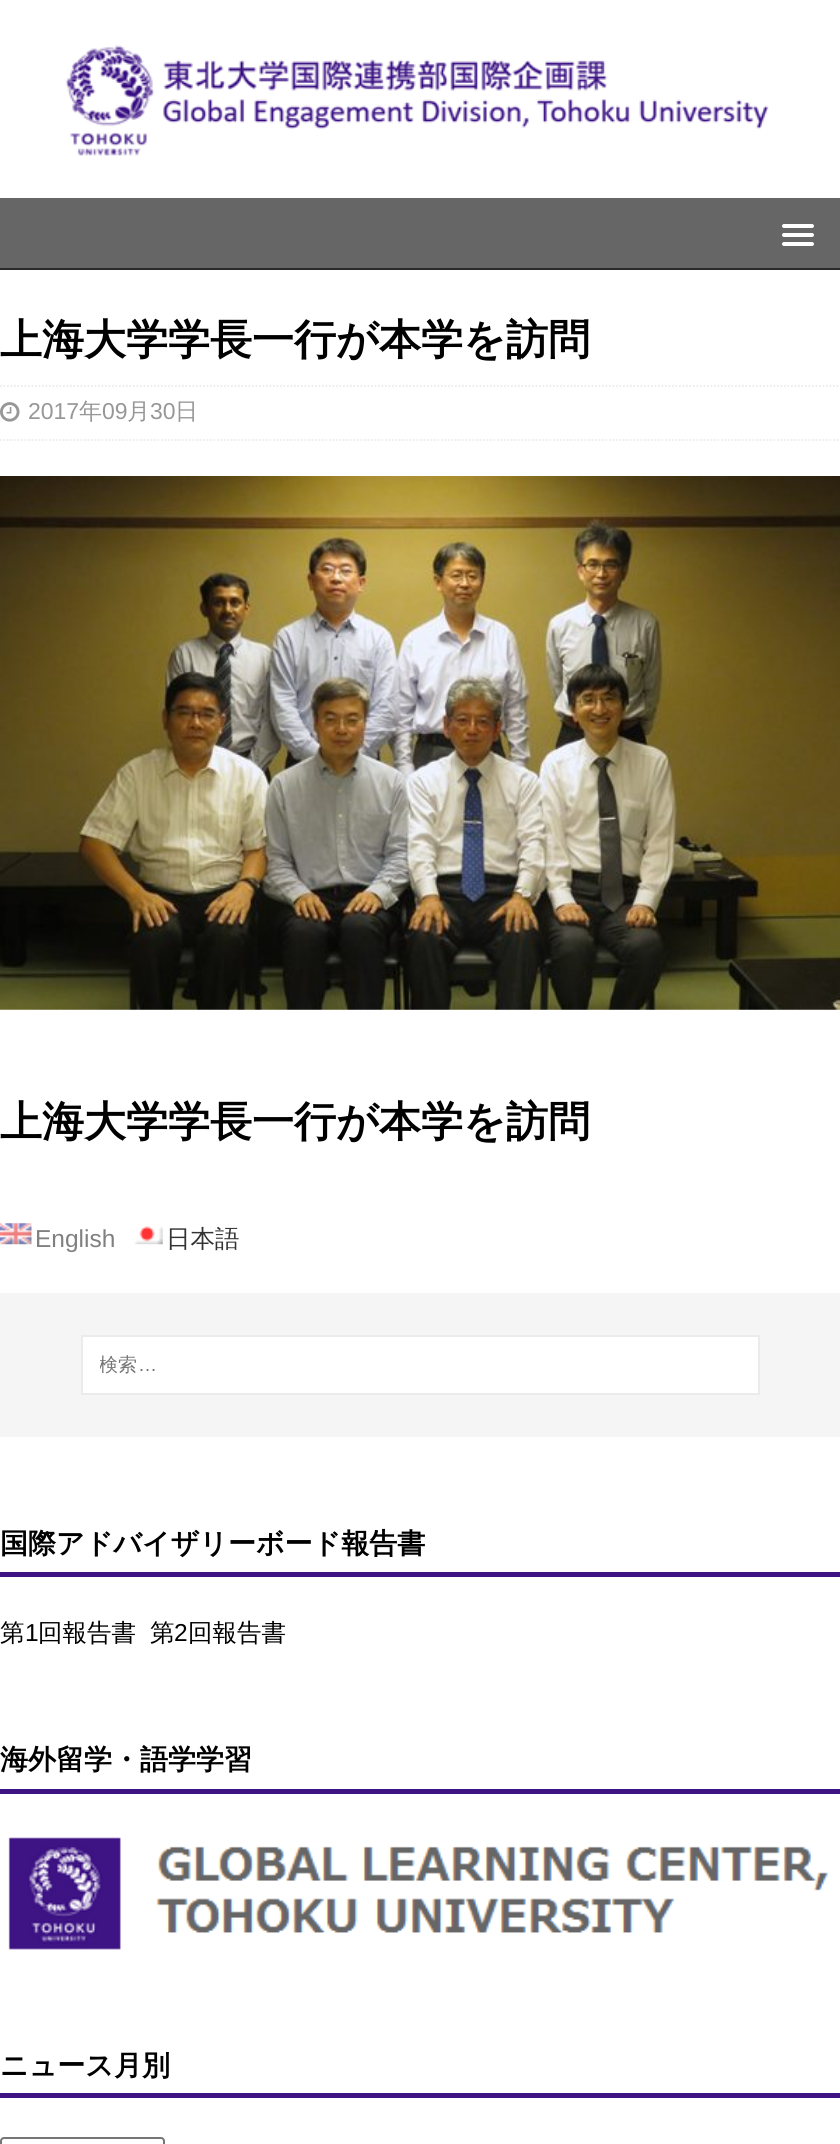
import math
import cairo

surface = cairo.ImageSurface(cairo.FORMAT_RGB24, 840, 2144)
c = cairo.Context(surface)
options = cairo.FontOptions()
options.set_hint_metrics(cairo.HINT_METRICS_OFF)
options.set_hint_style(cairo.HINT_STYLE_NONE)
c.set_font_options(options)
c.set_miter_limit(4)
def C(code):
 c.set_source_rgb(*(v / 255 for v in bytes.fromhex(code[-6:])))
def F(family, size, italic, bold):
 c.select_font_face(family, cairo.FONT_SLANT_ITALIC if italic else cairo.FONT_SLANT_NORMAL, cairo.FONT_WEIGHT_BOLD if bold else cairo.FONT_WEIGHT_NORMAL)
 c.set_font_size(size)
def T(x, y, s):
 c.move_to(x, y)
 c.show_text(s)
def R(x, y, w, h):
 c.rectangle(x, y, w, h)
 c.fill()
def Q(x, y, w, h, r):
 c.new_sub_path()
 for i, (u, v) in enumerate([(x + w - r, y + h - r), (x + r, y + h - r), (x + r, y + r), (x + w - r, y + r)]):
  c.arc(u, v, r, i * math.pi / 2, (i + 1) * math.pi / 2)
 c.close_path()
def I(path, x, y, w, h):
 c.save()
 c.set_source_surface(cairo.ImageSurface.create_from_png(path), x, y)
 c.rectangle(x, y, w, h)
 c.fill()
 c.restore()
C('ffffff')
c.paint()
I('1.png',65,45,704,111)
C('666666')
R(0,198,840,70)
C('2a2a2a')
R(0,268,840,2)
C('ffffff')
Q(782,224,32,4,2)
c.fill()
Q(782,233,32,4,2)
c.fill()
Q(782,242,32,4,2)
c.fill()
F('WenQuanYi Zen Hei',42,0,1)
C('000000')
T(0,354,'上海大学学長一行が本学を訪問')
c.new_path()
c.move_to(0,386)
c.line_to(840,386)
C('ebebeb')
c.set_line_width(1.8)
c.set_dash([1.75,1.75])
c.stroke()
c.new_path()
c.move_to(0,440)
c.line_to(840,440)
c.stroke()
I('2.png',0,402,20,20)
F('Liberation Sans',23,0,0)
C('979797')
T(28,419,'2017')
F('WenQuanYi Zen Hei Medium',23,0,0)
T(79,419,'年')
F('Liberation Sans',23,0,0)
T(102,419,'09')
F('WenQuanYi Zen Hei Medium',23,0,0)
T(127,419,'月')
F('Liberation Sans',23,0,0)
T(150,419,'30')
F('WenQuanYi Zen Hei Medium',23,0,0)
T(175,419,'日')
I('3.png',0,476,840,534)
F('WenQuanYi Zen Hei',42,0,1)
C('000000')
T(0,1136,'上海大学学長一行が本学を訪問')
I('4.png',0,1223,32,22)
F('Liberation Sans',24.5,0,0)
C('808080')
T(35,1247,'English')
I('5.png',134,1226,29,19)
F('WenQuanYi Zen Hei Medium',24.5,0,0)
C('333333')
T(166,1247,'日本語')
C('f5f5f5')
R(0,1293,840,144)
C('ffffff')
c.rectangle(82,1336,677,58)
c.fill_preserve()
C('ebebeb')
c.set_line_width(2)
c.set_dash([])
c.stroke()
c.save()
c.rectangle(100,1353,619,26)
c.clip()
F('WenQuanYi Zen Hei Medium',19,0,0)
C('757575')
T(99,1371,'検索')
c.restore()
F('Liberation Sans',19,0,0)
C('757575')
T(138,1371,'…')
C('3e1485')
R(0,1572,840,5)
F('WenQuanYi Zen Hei',28,0,1)
C('000000')
T(0,1553,'国際アドバイザリーボード報告書')
F('WenQuanYi Zen Hei Medium',24.5,0,0)
T(0,1641,'第')
F('Liberation Sans',24.5,0,0)
T(25,1641,'1')
F('WenQuanYi Zen Hei Medium',24.5,0,0)
T(38,1641,'回報告書')
T(150,1641,'第')
F('Liberation Sans',24.5,0,0)
T(174,1641,'2')
F('WenQuanYi Zen Hei Medium',24.5,0,0)
T(188,1641,'回報告書')
C('3e1485')
R(0,1789,840,5)
F('WenQuanYi Zen Hei',28,0,1)
C('000000')
T(0,1769,'海外留学・語学学習')
I('6.png',8,1837,821,113)
C('3e1485')
R(0,2093,840,5)
C('000000')
T(0,2075,'ニュース月別')
Q(1,2138,163,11,3)
C('767676')
c.stroke()
surface.write_to_png('o.png')
